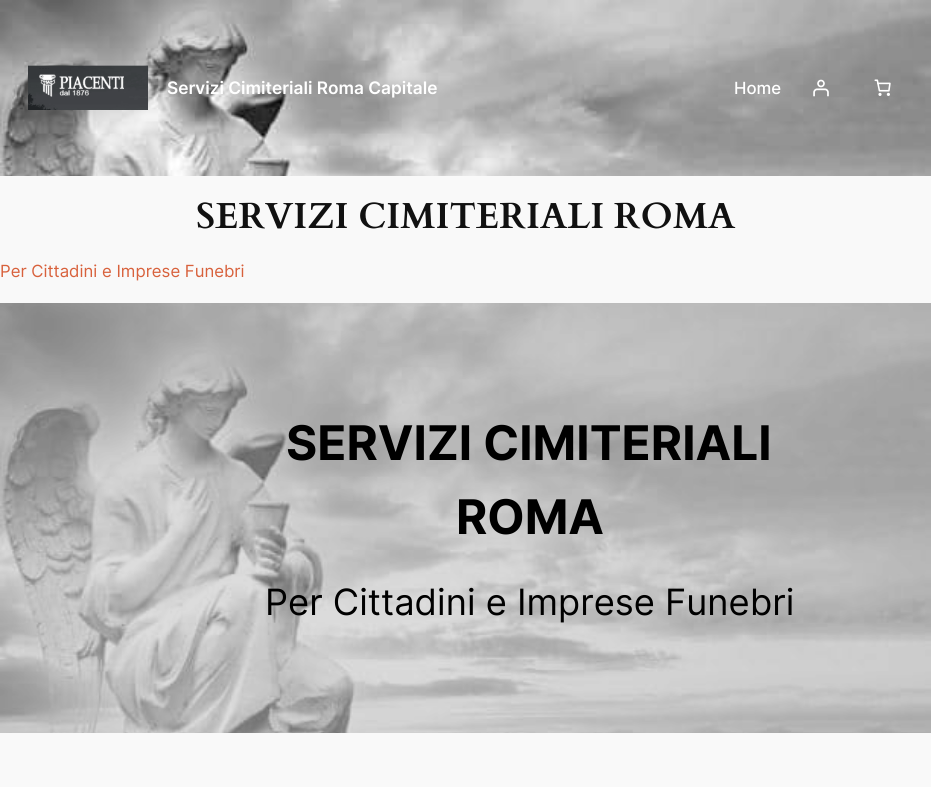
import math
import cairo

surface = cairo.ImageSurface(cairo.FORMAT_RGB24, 931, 787)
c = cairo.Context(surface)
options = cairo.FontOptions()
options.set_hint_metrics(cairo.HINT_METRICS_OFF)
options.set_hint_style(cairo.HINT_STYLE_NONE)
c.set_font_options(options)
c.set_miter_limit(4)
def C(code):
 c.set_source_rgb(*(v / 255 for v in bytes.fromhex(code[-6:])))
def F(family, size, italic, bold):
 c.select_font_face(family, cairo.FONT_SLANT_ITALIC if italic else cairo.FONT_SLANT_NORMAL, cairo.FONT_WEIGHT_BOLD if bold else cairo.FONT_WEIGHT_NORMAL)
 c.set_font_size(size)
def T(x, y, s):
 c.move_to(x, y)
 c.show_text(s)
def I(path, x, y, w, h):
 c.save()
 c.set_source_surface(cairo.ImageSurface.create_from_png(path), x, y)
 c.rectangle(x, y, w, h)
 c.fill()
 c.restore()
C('f9f9f9')
c.paint()
I('1.png',0,0,931,176)
I('2.png',28,65,120,45)
F('Inter SemiBold',17.25,0,0)
C('ffffff')
T(167,94,'Servizi Cimiteriali Roma Capitale')
F('Inter Medium',16.75,0,0)
T(734,94,'Home')
I('3.png',813,79,16,18)
I('4.png',874,79,17,17)
F('Cardo',36.25,0,1)
C('111111')
T(196,228,'SERVIZI CIMITERIALI ROMA')
F('Inter',16.75,0,0)
C('d8613c')
T(0,277,'Per Cittadini e Imprese Funebri')
I('5.png',0,303,931,430)
F('Inter',47.75,0,1)
C('000000')
T(286,460,'SERVIZI CIMITERIALI')
T(456,534,'ROMA')
F('Inter',36.25,0,0)
T(265,615,'Per Cittadini e Imprese Funebri')
surface.write_to_png('o.png')
